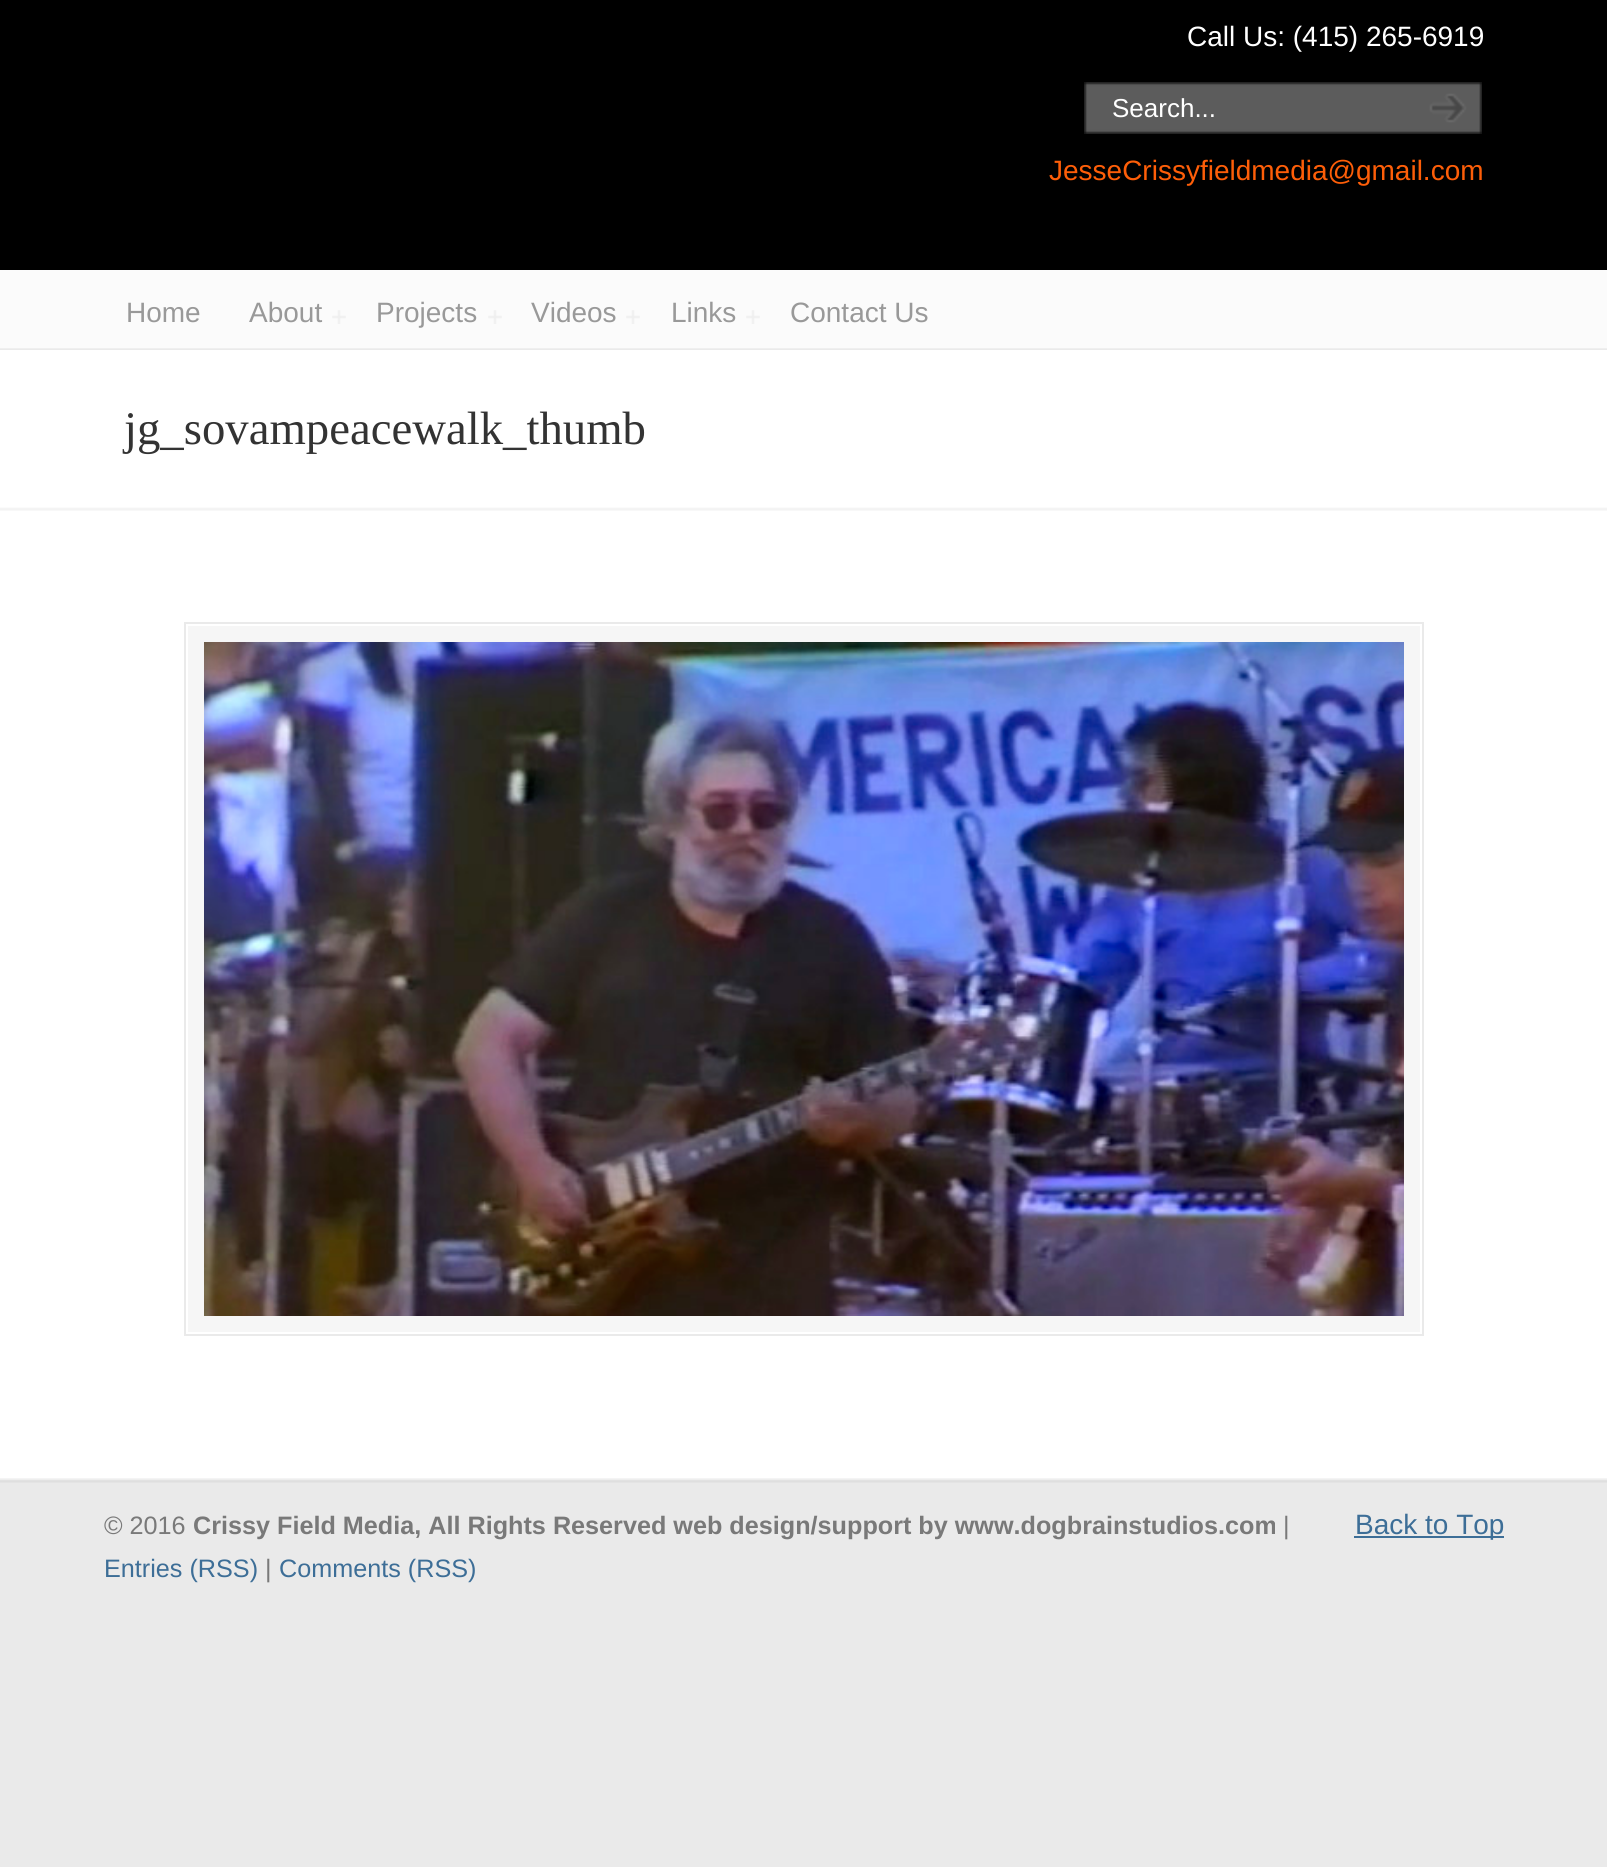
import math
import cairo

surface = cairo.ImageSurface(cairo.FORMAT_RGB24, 1607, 1867)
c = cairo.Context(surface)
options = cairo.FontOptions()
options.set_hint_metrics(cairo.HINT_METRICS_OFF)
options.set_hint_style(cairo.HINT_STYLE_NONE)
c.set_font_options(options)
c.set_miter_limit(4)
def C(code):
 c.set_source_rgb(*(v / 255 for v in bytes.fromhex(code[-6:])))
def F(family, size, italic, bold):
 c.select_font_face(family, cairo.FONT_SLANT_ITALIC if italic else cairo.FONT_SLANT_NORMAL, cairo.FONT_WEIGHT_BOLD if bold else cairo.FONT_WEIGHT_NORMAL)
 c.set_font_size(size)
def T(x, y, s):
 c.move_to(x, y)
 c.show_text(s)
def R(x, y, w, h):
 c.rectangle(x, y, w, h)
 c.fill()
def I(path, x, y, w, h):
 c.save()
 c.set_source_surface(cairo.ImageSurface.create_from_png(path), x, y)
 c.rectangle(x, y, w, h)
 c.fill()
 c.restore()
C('eaeaea')
c.paint()
C('000000')
R(0,0,1607,270)
F('Liberation Sans',28,0,0)
C('ffffff')
T(1187,46,'Call Us: (415) 265-6919')
I('1.png',1084,82,318,52)
F('Liberation Sans',26,0,0)
T(1112,117,'Search...')
I('2.png',1402,82,80,52)
F('Liberation Sans',28,0,0)
C('fe5e08')
T(1049,180,'JesseCrissyfieldmedia@gmail.com')
C('fbfbfb')
R(0,270,1607,80)
I('3.png',0,348,1607,2)
C('999999')
T(126,322,'Home')
T(249,322,'About')
I('4.png',332,310,14,14)
T(376,322,'Projects')
I('4.png',488,310,14,14)
T(531,322,'Videos')
I('4.png',626,310,14,14)
T(671,322,'Links')
I('4.png',746,310,14,14)
T(790,322,'Contact Us')
C('ffffff')
R(0,350,1607,1128)
F('Liberation Serif',46.75,0,0)
C('333333')
T(124,444,'jg_sovampeacewalk_thumb')
I('5.png',0,507,1607,4)
C('f6f6f6')
R(188,626,1232,706)
c.rectangle(185,623,1238,712)
C('eaeaea')
c.stroke()
I('6.png',204,642,1200,674)
I('7.png',0,1478,1607,5)
F('Liberation Sans',25.2,0,0)
C('797979')
T(104,1534,'© 2016')
F('Liberation Sans',25.2,0,1)
T(193,1534,'Crissy Field Media, All Rights Reserved web design/support by www.dogbrainstudios.com')
F('Liberation Sans',25.2,0,0)
T(1283,1534,'|')
C('3d6e97')
T(104,1577,'Entries (RSS)')
C('797979')
T(265,1577,'|')
C('3d6e97')
T(279,1577,'Comments (RSS)')
R(1354,1536,150,2)
F('Liberation Sans',28,0,0)
T(1355,1534,'Back to Top')
surface.write_to_png('o.png')
